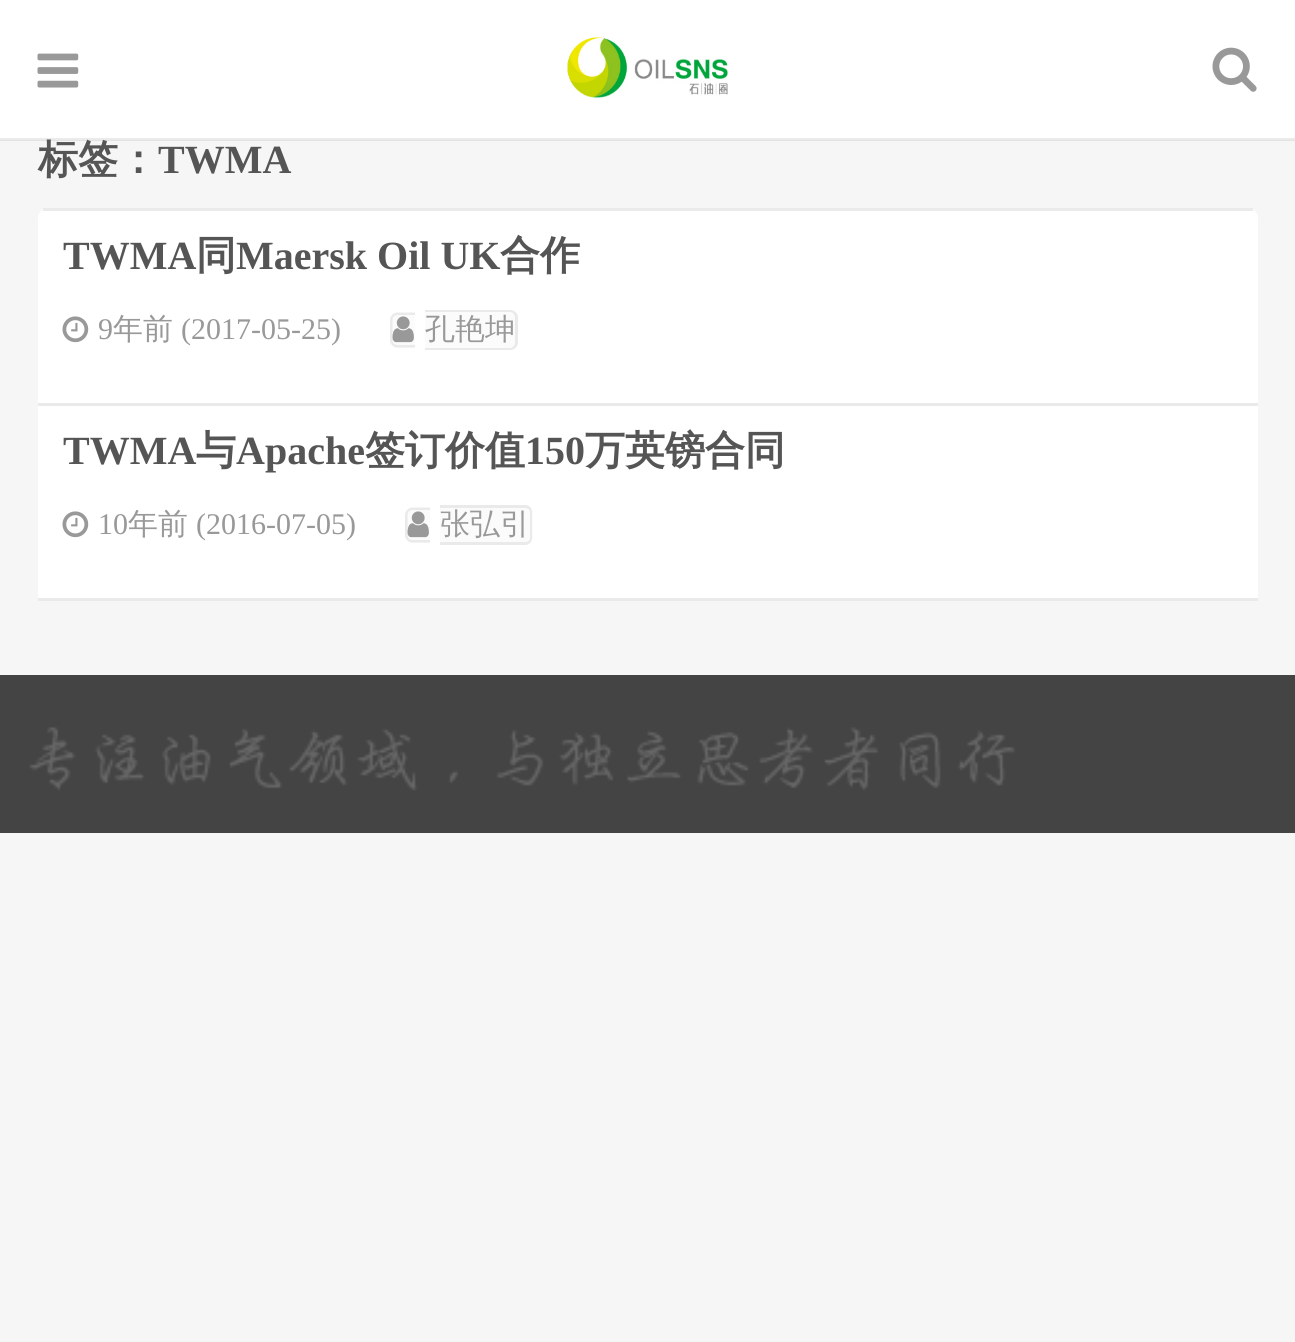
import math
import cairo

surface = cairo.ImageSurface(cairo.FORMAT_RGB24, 1295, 1342)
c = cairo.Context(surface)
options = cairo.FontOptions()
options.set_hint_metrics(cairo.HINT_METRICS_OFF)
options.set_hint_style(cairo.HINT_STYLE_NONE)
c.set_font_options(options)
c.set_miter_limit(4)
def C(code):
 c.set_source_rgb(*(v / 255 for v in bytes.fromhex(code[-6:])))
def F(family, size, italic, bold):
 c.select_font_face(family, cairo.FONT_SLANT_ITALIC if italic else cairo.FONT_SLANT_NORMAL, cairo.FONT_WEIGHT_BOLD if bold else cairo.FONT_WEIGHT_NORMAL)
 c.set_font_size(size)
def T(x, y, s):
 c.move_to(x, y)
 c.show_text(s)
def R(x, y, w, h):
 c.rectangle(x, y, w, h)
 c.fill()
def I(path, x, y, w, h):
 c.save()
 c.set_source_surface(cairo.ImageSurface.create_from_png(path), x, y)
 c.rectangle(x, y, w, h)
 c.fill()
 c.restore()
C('f6f6f6')
c.paint()
C('ffffff')
R(0,0,1295,140)
c.set_source_rgba(0,0,0,0.08)
R(0,138,1295,3)
I('1.png',37,53,42,35)
I('2.png',567,37,161,61)
I('3.png',1212,47,45,45)
F('WenQuanYi Zen Hei',40,0,1)
C('555555')
T(38,173,'标签：')
F('Liberation Serif',40,0,1)
T(158,173,'TWMA')
C('ffffff')
c.new_path()
c.move_to(48,208)
c.line_to(1248,208)
c.curve_to(1253.5,208,1258,212.5,1258,218)
c.line_to(1258,405)
c.line_to(38,405)
c.line_to(38,218)
c.curve_to(38,212.5,42.5,208,48,208)
c.close_path()
c.fill()
C('eaeaea')
R(43,208,1210,3)
C('555555')
T(63,269,'TWMA')
F('WenQuanYi Zen Hei',40,0,1)
T(196,269,'同')
F('Liberation Serif',40,0,1)
T(236,269,'Maersk Oil UK')
F('WenQuanYi Zen Hei',40,0,1)
T(500,269,'合作')
I('4.png',62,316,27,27)
F('Liberation Serif',30,0,0)
C('999999')
T(98,339,'9')
F('WenQuanYi Zen Hei Medium',30,0,0)
T(113,339,'年前')
F('Liberation Serif',30,0,0)
T(181,339,'(2017-05-25)')
C('fbfbfb')
c.new_path()
c.move_to(398,313)
c.line_to(415,313)
c.line_to(415,348)
c.line_to(398,348)
c.curve_to(393.5,348,390,344.5,390,340)
c.line_to(390,321)
c.curve_to(390,316.5,393.5,313,398,313)
c.close_path()
c.fill()
C('eaeaea')
c.set_fill_rule(cairo.FILL_RULE_EVEN_ODD)
c.new_path()
c.move_to(397.5,312.5)
c.line_to(415,312.5)
c.line_to(415,347.5)
c.line_to(397.5,347.5)
c.curve_to(393.5,347.5,390,344,390,340)
c.line_to(390,320)
c.curve_to(390,316,393.5,312.5,397.5,312.5)
c.close_path()
c.move_to(397.5,315)
c.line_to(415,315)
c.line_to(415,345)
c.line_to(397.5,345)
c.curve_to(394.5,345,392.5,343,392.5,340)
c.line_to(392.5,320)
c.curve_to(392.5,317,394.5,315,397.5,315)
c.close_path()
c.fill()
C('fbfbfb')
c.new_path()
c.move_to(425,310)
c.line_to(510,310)
c.curve_to(514.5,310,518,313.5,518,318)
c.line_to(518,342)
c.curve_to(518,346.5,514.5,350,510,350)
c.line_to(425,350)
c.close_path()
c.fill()
C('eaeaea')
c.new_path()
c.move_to(425,310)
c.line_to(510,310)
c.curve_to(514,310,518,313,518,318)
c.line_to(518,342)
c.curve_to(518,347,514,350,510,350)
c.line_to(425,350)
c.close_path()
c.move_to(425,312)
c.line_to(510,312)
c.curve_to(513,312,515,315,515,318)
c.line_to(515,342)
c.curve_to(515,345,513,348,510,348)
c.line_to(425,348)
c.close_path()
c.fill()
I('5.png',392,316,22,27)
F('WenQuanYi Zen Hei Medium',30,0,0)
C('999999')
T(425,339,'孔艳坤')
C('ffffff')
R(38,406,1220,192)
C('eaeaea')
R(38,403,1220,3)
R(38,598,1220,3)
F('Liberation Serif',40,0,1)
C('555555')
T(63,464,'TWMA')
F('WenQuanYi Zen Hei',40,0,1)
T(196,464,'与')
F('Liberation Serif',40,0,1)
T(236,464,'Apache')
F('WenQuanYi Zen Hei',40,0,1)
T(365,464,'签订价值')
F('Liberation Serif',40,0,1)
T(525,464,'150')
F('WenQuanYi Zen Hei',40,0,1)
T(585,464,'万英镑合同')
I('4.png',62,511,27,27)
F('Liberation Serif',30,0,0)
C('999999')
T(98,534,'10')
F('WenQuanYi Zen Hei Medium',30,0,0)
T(128,534,'年前')
F('Liberation Serif',30,0,0)
T(196,534,'(2016-07-05)')
C('fbfbfb')
c.new_path()
c.move_to(413,508)
c.line_to(430,508)
c.line_to(430,543)
c.line_to(413,543)
c.curve_to(408.5,543,405,539.5,405,535)
c.line_to(405,516)
c.curve_to(405,511.5,408.5,508,413,508)
c.close_path()
c.fill()
C('eaeaea')
c.new_path()
c.move_to(412.5,507.5)
c.line_to(430,507.5)
c.line_to(430,542.5)
c.line_to(412.5,542.5)
c.curve_to(408.5,542.5,405,539,405,535)
c.line_to(405,515)
c.curve_to(405,511,408.5,507.5,412.5,507.5)
c.close_path()
c.move_to(412.5,510)
c.line_to(430,510)
c.line_to(430,540)
c.line_to(412.5,540)
c.curve_to(409.5,540,407.5,538,407.5,535)
c.line_to(407.5,515)
c.curve_to(407.5,512,409.5,510,412.5,510)
c.close_path()
c.fill()
C('fbfbfb')
c.new_path()
c.move_to(440,505)
c.line_to(525,505)
c.curve_to(529.5,505,533,508.5,533,513)
c.line_to(533,537)
c.curve_to(533,541.5,529.5,545,525,545)
c.line_to(440,545)
c.close_path()
c.fill()
C('eaeaea')
c.new_path()
c.move_to(440,505)
c.line_to(525,505)
c.curve_to(529,505,532,508,532,512)
c.line_to(532,538)
c.curve_to(532,542,529,545,525,545)
c.line_to(440,545)
c.close_path()
c.move_to(440,508)
c.line_to(525,508)
c.curve_to(528,508,530,510,530,512)
c.line_to(530,538)
c.curve_to(530,540,528,542,525,542)
c.line_to(440,542)
c.close_path()
c.fill()
I('5.png',407,511,22,27)
F('WenQuanYi Zen Hei Medium',30,0,0)
C('999999')
T(440,534,'张弘引')
C('444444')
R(0,675,1295,158)
I('6.png',29,727,986,64)
surface.write_to_png('o.png')
